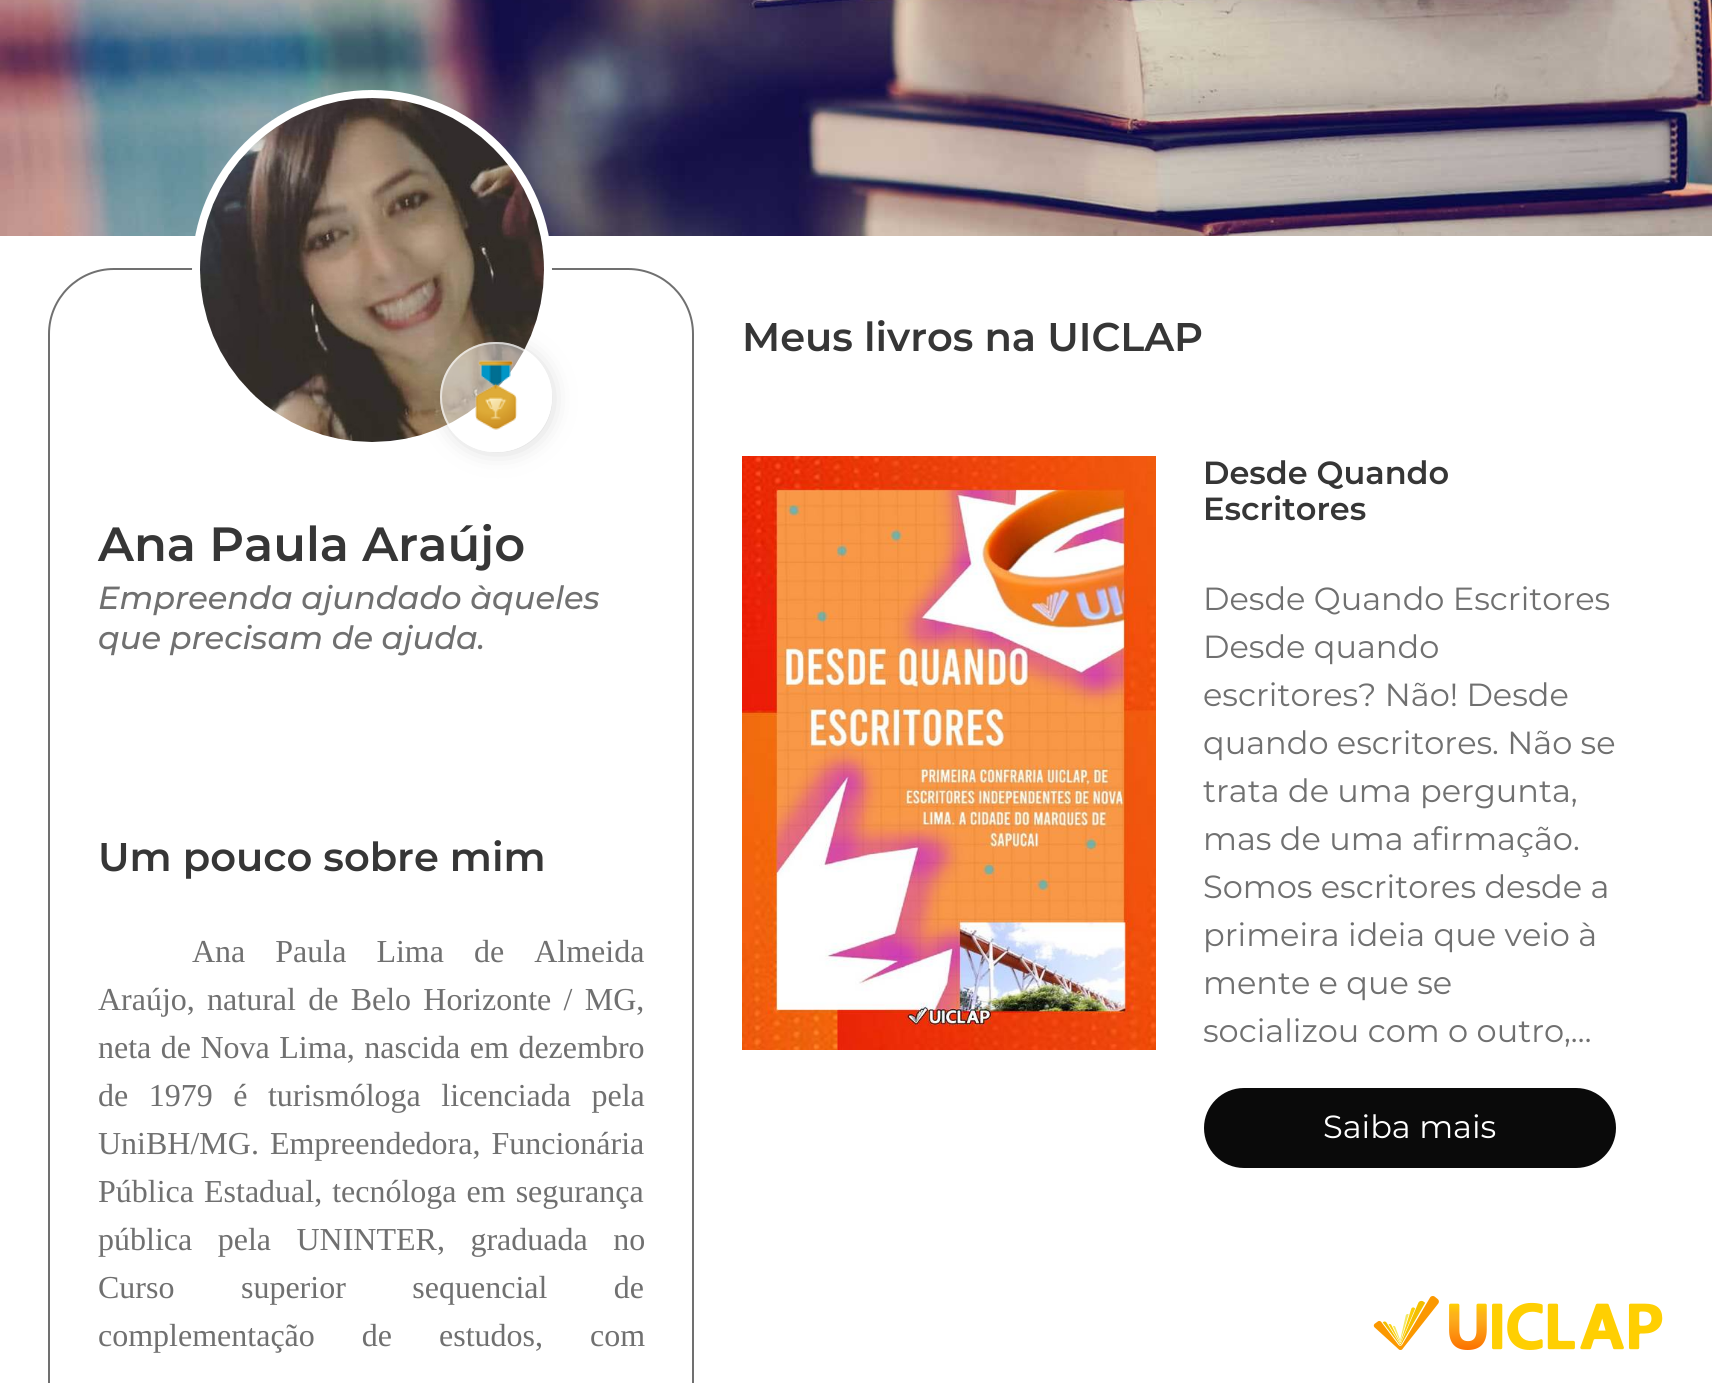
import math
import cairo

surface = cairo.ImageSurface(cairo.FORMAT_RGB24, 1712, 1383)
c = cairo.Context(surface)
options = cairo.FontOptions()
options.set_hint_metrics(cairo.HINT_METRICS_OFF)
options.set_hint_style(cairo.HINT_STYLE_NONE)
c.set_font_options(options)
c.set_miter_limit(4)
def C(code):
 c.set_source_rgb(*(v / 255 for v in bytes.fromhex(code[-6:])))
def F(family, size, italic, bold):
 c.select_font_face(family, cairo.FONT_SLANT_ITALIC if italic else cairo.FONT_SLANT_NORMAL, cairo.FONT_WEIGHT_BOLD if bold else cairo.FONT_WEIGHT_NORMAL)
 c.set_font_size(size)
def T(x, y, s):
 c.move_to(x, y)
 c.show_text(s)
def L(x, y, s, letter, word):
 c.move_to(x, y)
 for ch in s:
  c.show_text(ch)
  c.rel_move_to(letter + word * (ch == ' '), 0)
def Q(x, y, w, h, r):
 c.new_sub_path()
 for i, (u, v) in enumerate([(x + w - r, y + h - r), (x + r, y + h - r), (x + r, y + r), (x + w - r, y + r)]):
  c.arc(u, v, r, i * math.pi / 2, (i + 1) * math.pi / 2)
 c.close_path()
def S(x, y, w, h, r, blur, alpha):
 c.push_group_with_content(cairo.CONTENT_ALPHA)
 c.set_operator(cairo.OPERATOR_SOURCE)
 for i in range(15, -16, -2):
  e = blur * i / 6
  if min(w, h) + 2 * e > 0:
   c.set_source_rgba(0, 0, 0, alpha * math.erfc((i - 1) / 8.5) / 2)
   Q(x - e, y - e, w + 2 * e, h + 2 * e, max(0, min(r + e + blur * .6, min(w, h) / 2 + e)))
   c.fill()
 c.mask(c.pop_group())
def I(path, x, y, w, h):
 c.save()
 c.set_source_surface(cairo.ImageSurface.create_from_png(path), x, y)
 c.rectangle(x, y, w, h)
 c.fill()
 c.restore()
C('ffffff')
c.paint()
I('1.png',0,0,1712,236)
Q(49,269,644,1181,65)
C('707070')
c.stroke()
C('ffffff')
c.arc(372,270,176,0,2 * math.pi)
c.fill_preserve()
c.set_line_width(8)
c.stroke()
I('2.png',200,98,344,344)
c.save()
c.set_fill_rule(cairo.FILL_RULE_EVEN_ODD)
c.new_path()
c.move_to(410,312)
c.line_to(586,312)
c.line_to(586,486)
c.line_to(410,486)
c.close_path()
c.move_to(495,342)
c.line_to(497,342)
c.curve_to(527.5,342,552,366.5,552,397)
c.curve_to(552,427.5,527.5,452,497,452)
c.line_to(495,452)
c.curve_to(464.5,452,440,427.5,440,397)
c.curve_to(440,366.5,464.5,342,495,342)
c.close_path()
c.clip()
C('707070')
S(450,352,96,94,47,13,.44)
c.restore()
c.set_source_rgba(1,1,1,0.47)
Q(440,342,112,110,55)
c.fill()
Q(441,343,110,108,54)
c.set_source_rgba(1,1,1,0.6)
c.set_line_width(2)
c.stroke()
I('3.png',475,360,43,70)
F('Montserrat SemiBold',48,0,0)
C('363636')
T(98,561,'Ana Paula Araújo')
F('Montserrat Thin',32,1,0)
C('707070')
T(98,609,'Empreenda ajundado àqueles')
T(98,649,'que precisam de ajuda.')
F('Montserrat SemiBold',40,0,0)
C('363636')
T(98,871,'Um pouco sobre mim')
F('Liberation Serif',32,0,0)
C('707070')
L(192,962,'Ana Paula Lima de Almeida',0,22)
L(98,1010,'Araújo, natural de Belo Horizonte / MG,',0,4.25)
L(98,1058,'neta de Nova Lima, nascida em dezembro',0,1.5)
L(98,1106,'de 1979 é turismóloga licenciada pela',0,12.5)
L(98,1154,'UniBH/MG. Empreendedora, Funcionária',0,3)
L(98,1202,'Pública Estadual, tecnóloga em segurança',0,2)
L(98,1250,'pública pela UNINTER, graduada no',0,17.5)
L(98,1298,'Curso superior sequencial de',0,58.5)
L(98,1346,'complementação de estudos, com',0,39)
F('Montserrat SemiBold',40,0,0)
C('363636')
T(742,351,'Meus livros na UICLAP')
I('4.png',742,456,414,594)
F('Montserrat SemiBold',32,0,0)
T(1203,484,'Desde Quando')
T(1203,520,'Escritores')
F('Montserrat',32,0,0)
C('707070')
T(1203,610,'Desde Quando Escritores')
T(1203,658,'Desde quando')
T(1203,706,'escritores? Não! Desde')
T(1203,754,'quando escritores. Não se')
T(1203,802,'trata de uma pergunta,')
T(1203,850,'mas de uma afirmação.')
T(1203,898,'Somos escritores desde a')
T(1203,946,'primeira ideia que veio à')
T(1203,994,'mente e que se')
T(1203,1042,'socializou com o outro,…')
C('0a0a0a')
Q(1204,1088,412,80,40)
c.fill()
C('ffffff')
T(1323,1138,'Saiba mais')
I('5.png',1373,1296,290,54)
surface.write_to_png('o.png')
